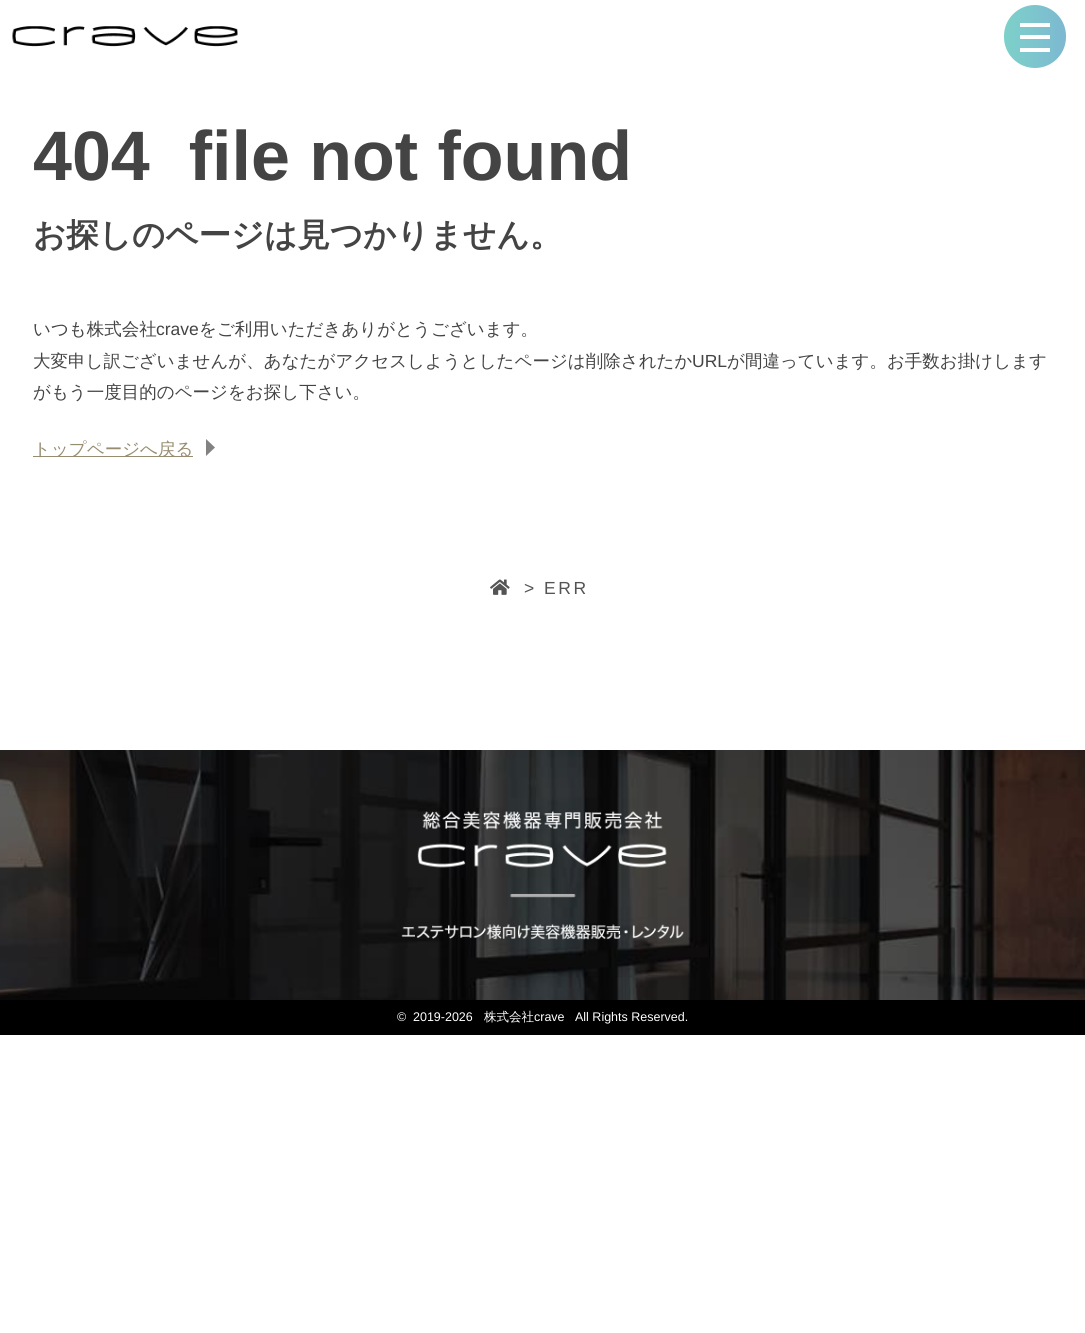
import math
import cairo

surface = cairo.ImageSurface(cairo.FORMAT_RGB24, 1085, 1333)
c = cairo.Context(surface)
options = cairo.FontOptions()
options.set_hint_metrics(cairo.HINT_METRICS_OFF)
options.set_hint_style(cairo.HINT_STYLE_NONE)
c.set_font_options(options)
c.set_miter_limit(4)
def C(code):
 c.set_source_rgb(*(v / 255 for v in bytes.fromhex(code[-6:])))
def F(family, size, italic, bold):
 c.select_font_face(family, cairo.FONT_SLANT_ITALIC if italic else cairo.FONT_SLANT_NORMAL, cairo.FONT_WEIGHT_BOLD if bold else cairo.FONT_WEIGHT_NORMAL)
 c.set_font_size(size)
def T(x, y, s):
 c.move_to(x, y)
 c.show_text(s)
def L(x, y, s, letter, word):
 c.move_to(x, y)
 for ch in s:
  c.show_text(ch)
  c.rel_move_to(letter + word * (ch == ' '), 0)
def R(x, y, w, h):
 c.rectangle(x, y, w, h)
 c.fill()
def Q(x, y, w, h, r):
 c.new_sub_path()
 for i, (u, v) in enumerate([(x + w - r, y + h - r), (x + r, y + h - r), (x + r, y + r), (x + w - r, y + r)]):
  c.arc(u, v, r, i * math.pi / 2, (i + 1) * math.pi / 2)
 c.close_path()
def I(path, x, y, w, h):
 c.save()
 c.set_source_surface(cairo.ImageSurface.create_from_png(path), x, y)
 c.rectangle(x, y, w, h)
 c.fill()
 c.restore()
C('ffffff')
c.paint()
I('1.png',12,26,226,21)
gradient = cairo.LinearGradient(1004,36,1066,36)
gradient.add_color_stop_rgba(0,0.49,0.82,0.792,1)
gradient.add_color_stop_rgba(1,0.49,0.722,0.82,1)
c.set_source(gradient)
Q(1004,5,62,63,31)
c.fill()
C('ffffff')
R(1020,23,30,4)
R(1020,35,30,4)
R(1020,48,30,4)
F('Liberation Sans',70,0,1)
C('444444')
T(33,180,'404  file not found')
F('WenQuanYi Zen Hei',32.5,0,1)
T(33,246,'お探しのページは見つかりません。')
F('WenQuanYi Zen Hei Medium',17.5,0,0)
T(33,335,'いつも株式会社')
F('Liberation Sans',17.5,0,0)
T(156,335,'crave')
F('WenQuanYi Zen Hei Medium',17.5,0,0)
T(199,335,'をご利用いただきありがとうございます。')
T(33,367,'大変申し訳ございませんが、あなたがアクセスしようとしたページは削除されたか')
F('Liberation Sans',17.5,0,0)
T(692,367,'URL')
F('WenQuanYi Zen Hei Medium',17.5,0,0)
T(727,367,'が間違っています。お手数お掛けします')
T(33,398,'がもう一度目的のページをお探し下さい。')
C('968d70')
R(33,456,160,1)
T(33,455,'トップページへ戻る')
C('848181')
c.new_path()
c.move_to(206,456)
c.line_to(206,439)
c.line_to(215,447.5)
c.close_path()
c.fill()
I('2.png',490,579,20,16)
F('Liberation Sans',17.5,0,0)
C('545454')
L(524,594,'> ERR',2.5,0)
I('3.png',0,750,1085,250)
I('4.png',401,811,283,129)
C('000000')
R(0,1000,1085,35)
F('Liberation Sans',12.5,0,0)
C('ffffff')
T(397,1021,'©')
T(413,1021,'2019-2026')
F('WenQuanYi Zen Hei Medium',12.5,0,0)
T(484,1021,'株式会社')
F('Liberation Sans',12.5,0,0)
T(534,1021,'crave')
T(575,1021,'All Rights Reserved.')
surface.write_to_png('o.png')
